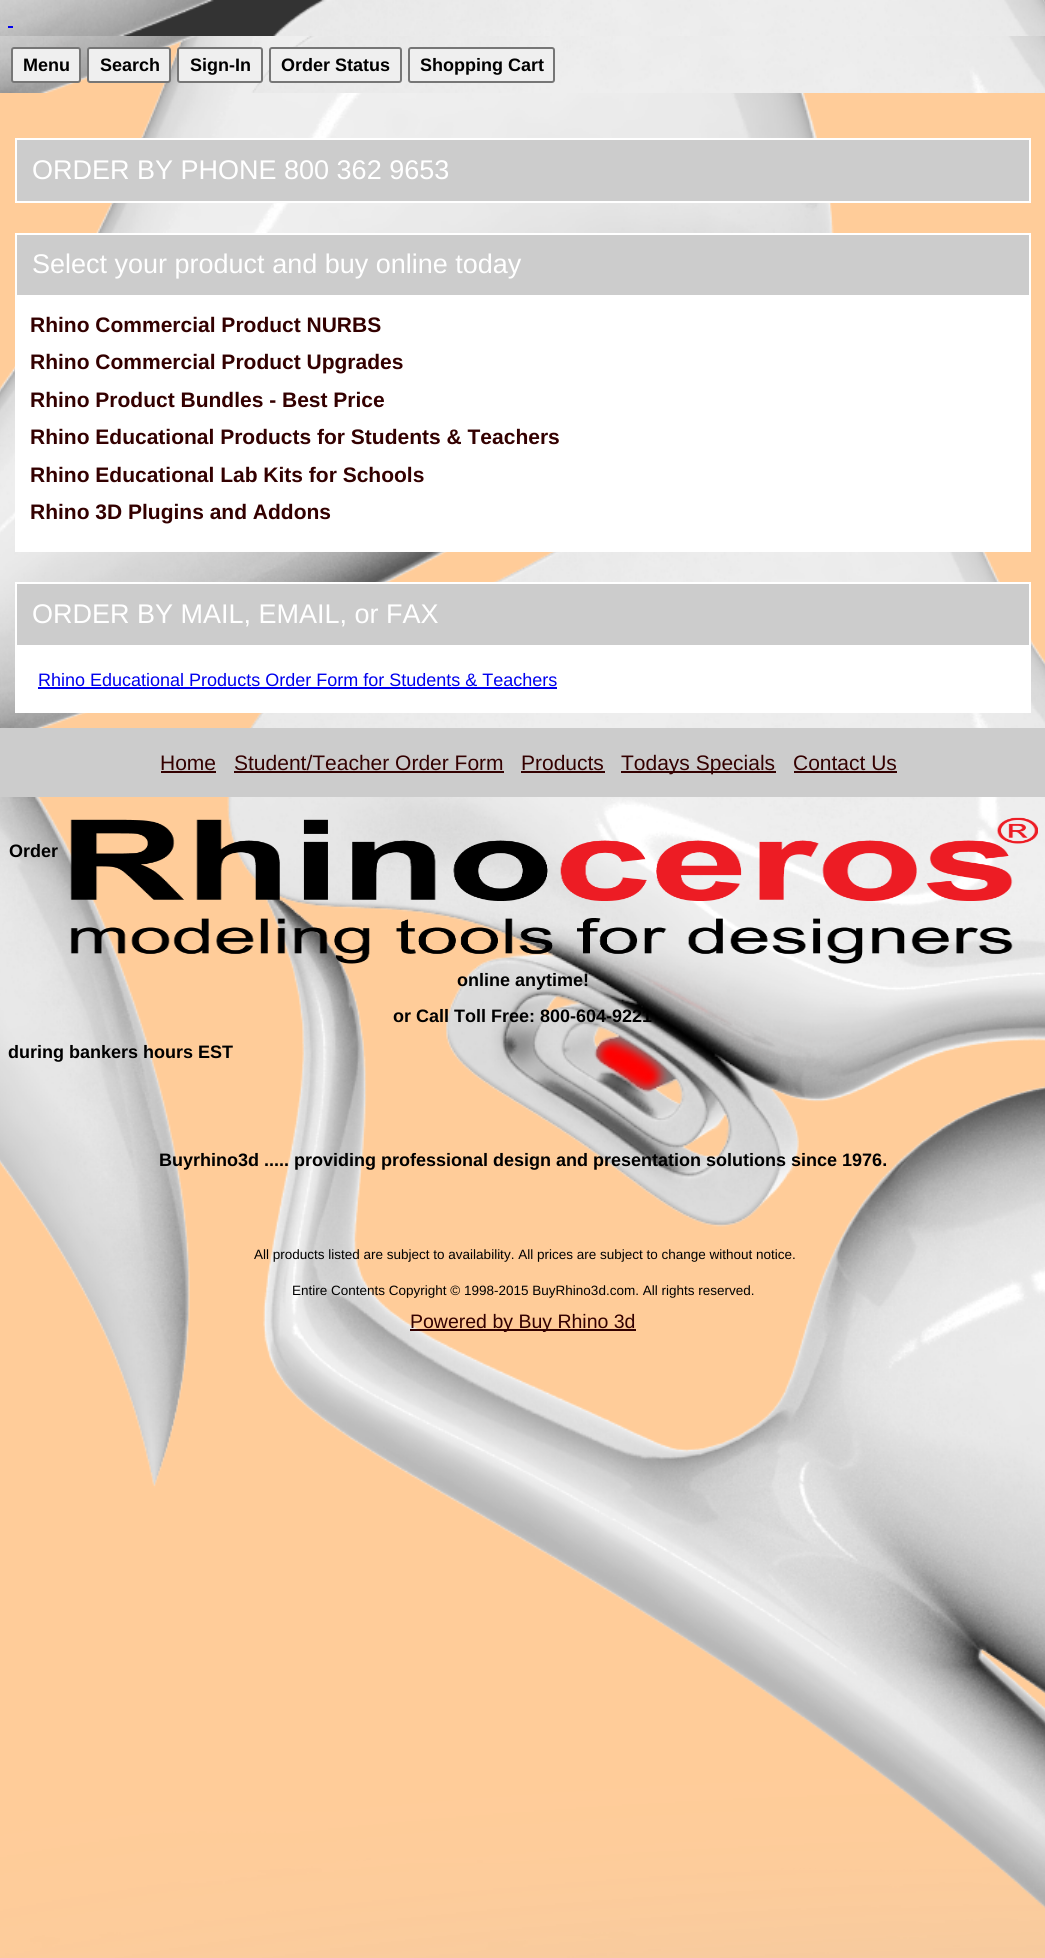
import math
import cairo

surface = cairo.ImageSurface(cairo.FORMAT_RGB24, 1045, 1958)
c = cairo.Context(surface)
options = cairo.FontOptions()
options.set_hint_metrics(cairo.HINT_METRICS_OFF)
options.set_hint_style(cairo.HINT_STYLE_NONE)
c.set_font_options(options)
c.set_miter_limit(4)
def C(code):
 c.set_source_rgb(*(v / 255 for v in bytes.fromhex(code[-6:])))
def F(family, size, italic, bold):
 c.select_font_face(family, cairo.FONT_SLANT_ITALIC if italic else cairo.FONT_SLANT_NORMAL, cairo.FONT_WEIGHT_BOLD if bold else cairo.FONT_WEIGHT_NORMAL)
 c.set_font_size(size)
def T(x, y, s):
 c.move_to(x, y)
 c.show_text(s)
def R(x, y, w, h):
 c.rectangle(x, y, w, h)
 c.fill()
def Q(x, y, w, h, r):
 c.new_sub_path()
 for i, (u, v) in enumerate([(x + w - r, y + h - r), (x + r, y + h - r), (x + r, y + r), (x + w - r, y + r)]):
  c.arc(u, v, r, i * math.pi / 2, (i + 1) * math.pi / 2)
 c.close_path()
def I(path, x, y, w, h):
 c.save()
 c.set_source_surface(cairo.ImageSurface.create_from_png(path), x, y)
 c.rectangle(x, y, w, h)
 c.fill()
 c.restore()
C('ffcc99')
c.paint()
I('1.png',0,36,1045,1922)
I('2.png',0,36,1045,57)
C('333333')
R(122,0,923,36)
I('3.png',0,0,1045,36)
C('0000ee')
R(8,26,5,2)
C('efefef')
Q(12,48,68,34,2)
c.fill_preserve()
C('767676')
c.stroke()
F('Liberation Sans',18,0,1)
C('000000')
T(23,71,'Menu')
C('efefef')
Q(88,48,82,34,2)
c.fill_preserve()
C('767676')
c.stroke()
C('000000')
T(100,71,'Search')
C('efefef')
Q(178,48,84,34,2)
c.fill_preserve()
C('767676')
c.stroke()
C('000000')
T(190,71,'Sign-In')
C('efefef')
Q(270,48,131,34,2)
c.fill_preserve()
C('767676')
c.stroke()
C('000000')
T(281,71,'Order Status')
C('efefef')
Q(409,48,145,34,2)
c.fill_preserve()
C('767676')
c.stroke()
C('000000')
T(420,71,'Shopping Cart')
C('cccccc')
c.rectangle(16,139,1014,63)
c.fill_preserve()
C('ffffff')
c.stroke()
F('Liberation Sans',27,0,0)
T(32,179,'ORDER BY PHONE 800 362 9653')
C('cccccc')
c.rectangle(16,234,1014,62)
c.fill_preserve()
C('ffffff')
c.stroke()
T(32,273,'Select your product and buy online today')
R(15,297,1016,255)
F('Liberation Sans',21,0,1)
C('330000')
T(30,332,'Rhino Commercial Product NURBS')
T(30,369,'Rhino Commercial Product Upgrades')
T(30,407,'Rhino Product Bundles - Best Price')
T(30,444,'Rhino Educational Products for Students & Teachers')
T(30,482,'Rhino Educational Lab Kits for Schools')
T(30,519,'Rhino 3D Plugins and Addons')
C('cccccc')
c.rectangle(16,583,1014,63)
c.fill_preserve()
C('ffffff')
c.stroke()
F('Liberation Sans',27,0,0)
T(32,623,'ORDER BY MAIL, EMAIL, or FAX')
R(15,647,1016,66)
F('Liberation Sans',18,0,0)
C('0000ee')
T(38,686,'Rhino Educational Products Order Form for Students & Teachers')
R(38,687,519,2)
C('cccccc')
R(0,728,1045,69)
F('Liberation Sans',21,0,0)
C('330000')
T(160,770,'Home')
R(161,771,55,2)
T(234,770,'Student/Teacher Order Form')
R(234,771,270,2)
T(521,770,'Products')
R(521,771,84,2)
R(621,771,155,2)
T(621,770,'Todays Specials')
T(793,770,'Contact Us')
R(794,771,103,2)
I('4.png',70,817,968,147)
F('Liberation Sans',18,0,1)
C('000000')
T(9,857,'Order')
T(457,986,'online anytime!')
T(393,1022,'or Call Toll Free: 800-604-9221')
T(8,1058,'during bankers hours EST')
T(159,1166,'Buyrhino3d ..... providing professional design and presentation solutions since 1976.')
F('Liberation Sans',13.5,0,0)
T(254,1259,'All products listed are subject to availability. All prices are subject to change without notice.')
T(292,1295,'Entire Contents Copyright © 1998-2015 BuyRhino3d.com. All rights reserved.')
C('330000')
R(410,1329,226,2)
F('Liberation Sans',19.5,0,0)
T(410,1328,'Powered by Buy Rhino 3d')
surface.write_to_png('o.png')
